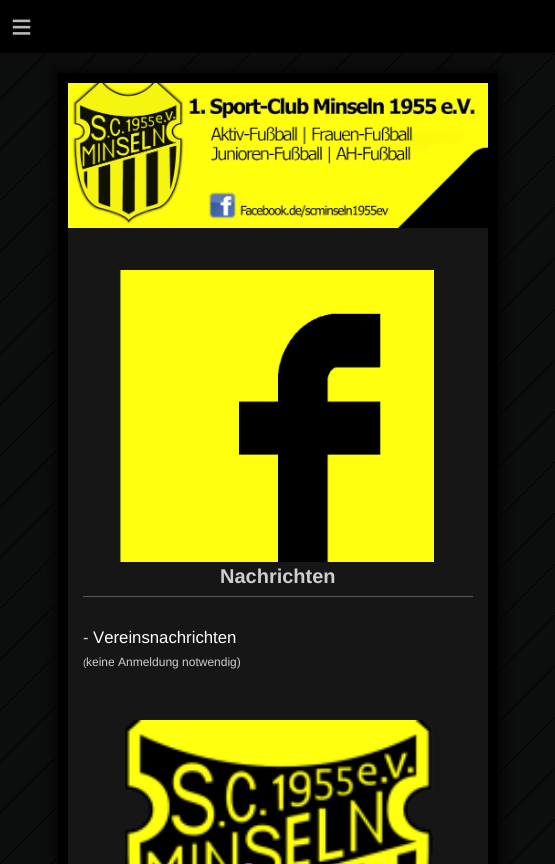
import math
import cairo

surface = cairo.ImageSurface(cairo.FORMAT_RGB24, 555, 864)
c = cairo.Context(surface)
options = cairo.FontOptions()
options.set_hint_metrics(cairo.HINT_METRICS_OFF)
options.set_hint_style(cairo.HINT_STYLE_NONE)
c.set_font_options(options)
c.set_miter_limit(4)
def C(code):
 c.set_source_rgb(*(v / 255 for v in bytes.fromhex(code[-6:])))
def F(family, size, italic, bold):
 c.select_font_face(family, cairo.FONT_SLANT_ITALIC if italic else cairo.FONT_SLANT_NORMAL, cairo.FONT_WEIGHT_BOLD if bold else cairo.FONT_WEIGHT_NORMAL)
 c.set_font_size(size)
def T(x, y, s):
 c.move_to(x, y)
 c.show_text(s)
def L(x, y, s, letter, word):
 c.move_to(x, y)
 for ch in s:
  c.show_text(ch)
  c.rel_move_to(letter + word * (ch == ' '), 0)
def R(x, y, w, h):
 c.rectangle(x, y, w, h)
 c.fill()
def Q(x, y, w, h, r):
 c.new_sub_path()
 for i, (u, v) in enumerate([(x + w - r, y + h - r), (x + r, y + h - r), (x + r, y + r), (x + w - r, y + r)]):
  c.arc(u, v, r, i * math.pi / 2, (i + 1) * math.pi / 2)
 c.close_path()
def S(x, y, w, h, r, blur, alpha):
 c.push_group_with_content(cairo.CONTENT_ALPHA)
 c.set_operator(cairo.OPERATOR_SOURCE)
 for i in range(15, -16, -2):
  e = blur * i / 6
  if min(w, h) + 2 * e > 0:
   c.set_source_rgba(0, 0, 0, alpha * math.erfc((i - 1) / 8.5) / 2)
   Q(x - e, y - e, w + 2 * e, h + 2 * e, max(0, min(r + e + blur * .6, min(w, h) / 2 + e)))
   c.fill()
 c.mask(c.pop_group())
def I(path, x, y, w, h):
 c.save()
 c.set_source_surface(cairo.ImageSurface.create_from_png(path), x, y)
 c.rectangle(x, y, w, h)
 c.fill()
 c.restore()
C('0c0d0d')
c.paint()
I('1.png',0,53,555,811)
C('000000')
S(58,73,440,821,0,10,1)
C('000000')
R(0,0,555,53)
F('Liberation Sans',36,0,0)
C('b8b8b8')
L(11,39,'≡',10,0)
C('000000')
R(58,73,440,791)
I('2.png',68,83,420,145)
C('161616')
R(68,228,420,636)
I('3.png',120,270,314,292)
F('Liberation Sans',20,0,1)
C('cecece')
T(220,583,'Nachrichten')
C('5b5b5b')
R(83,596,390,1)
F('Liberation Sans',16.75,0,0)
C('cecece')
T(83,643,'-')
C('ffffff')
T(93,643,'Vereinsnachrichten')
F('Liberation Sans',10,0,0)
C('cecece')
T(83,666,'(')
F('Liberation Sans',12,0,0)
T(86,666,'keine Anmeldung notwendig)')
I('4.png',125,720,308,144)
surface.write_to_png('o.png')
